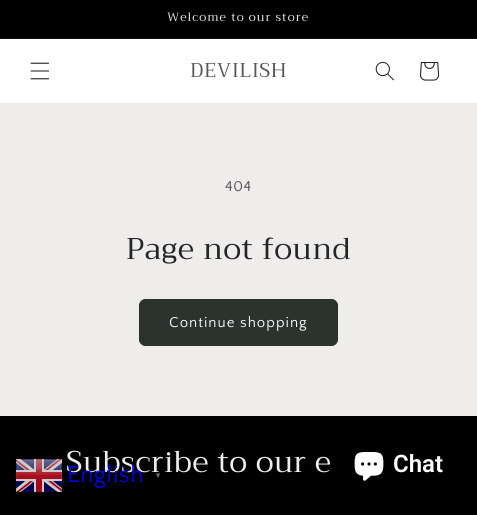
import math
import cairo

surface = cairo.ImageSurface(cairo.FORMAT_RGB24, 477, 515)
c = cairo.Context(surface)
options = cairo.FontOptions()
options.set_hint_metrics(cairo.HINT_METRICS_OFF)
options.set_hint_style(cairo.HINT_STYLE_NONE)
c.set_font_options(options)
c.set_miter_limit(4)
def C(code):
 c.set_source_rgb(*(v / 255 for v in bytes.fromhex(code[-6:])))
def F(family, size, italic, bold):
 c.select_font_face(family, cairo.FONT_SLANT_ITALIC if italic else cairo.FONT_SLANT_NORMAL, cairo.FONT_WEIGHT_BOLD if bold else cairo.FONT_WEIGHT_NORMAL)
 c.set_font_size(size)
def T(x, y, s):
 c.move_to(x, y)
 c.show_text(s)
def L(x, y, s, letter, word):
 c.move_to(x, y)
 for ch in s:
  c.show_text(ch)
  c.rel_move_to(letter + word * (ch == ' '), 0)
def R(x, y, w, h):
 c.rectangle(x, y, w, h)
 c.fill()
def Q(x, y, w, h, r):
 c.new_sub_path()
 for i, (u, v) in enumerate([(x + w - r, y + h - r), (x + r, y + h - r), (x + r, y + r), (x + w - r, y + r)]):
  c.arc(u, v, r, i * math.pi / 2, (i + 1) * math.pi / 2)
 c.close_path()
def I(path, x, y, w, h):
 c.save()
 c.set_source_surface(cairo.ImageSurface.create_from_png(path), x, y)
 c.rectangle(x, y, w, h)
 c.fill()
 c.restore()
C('efecec')
c.paint()
C('000000')
R(0,0,477,38)
C('131313')
R(0,38,477,1)
F('Trirong',12,0,0)
C('efecec')
L(167,21,'Welcome to our store',1,0)
C('ffffff')
R(0,39,477,64)
I('1.png',30,62,20,18)
F('Trirong',20,0,0)
C('585757')
L(190,77,'DEVILISH',.6,0)
I('2.png',375,61,19,20)
I('3.png',420,62,20,19)
F('Quattrocento Sans',15,0,0)
L(225,191,'404',.6,0)
F('Trirong',30,0,0)
C('252525')
L(126,259,'Page not found',.6,0)
C('2c332f')
Q(139,299,199,47,7)
c.fill()
Q(139.5,299.5,198,46,6.5)
c.set_line_width(1)
c.stroke()
F('Quattrocento Sans',15,0,0)
C('ffffff')
L(169,327,'Continue shopping',1,0)
C('000000')
R(0,416,477,99)
F('Trirong',30,0,0)
C('efecec')
L(66,472,'Subscribe to our e',.6,0)
I('4.png',354,452,30,29)
F('Roboto SemiBold',24,0,0)
C('ffffff')
T(393,472,'Chat')
I('5.png',16,459,46,33)
F('Quattrocento Sans',24,0,0)
C('0000ee')
L(67,482,'English',.6,0)
F('Liberation Sans',8,0,1)
C('666666')
L(154,478,'▼',.6,0)
surface.write_to_png('o.png')
